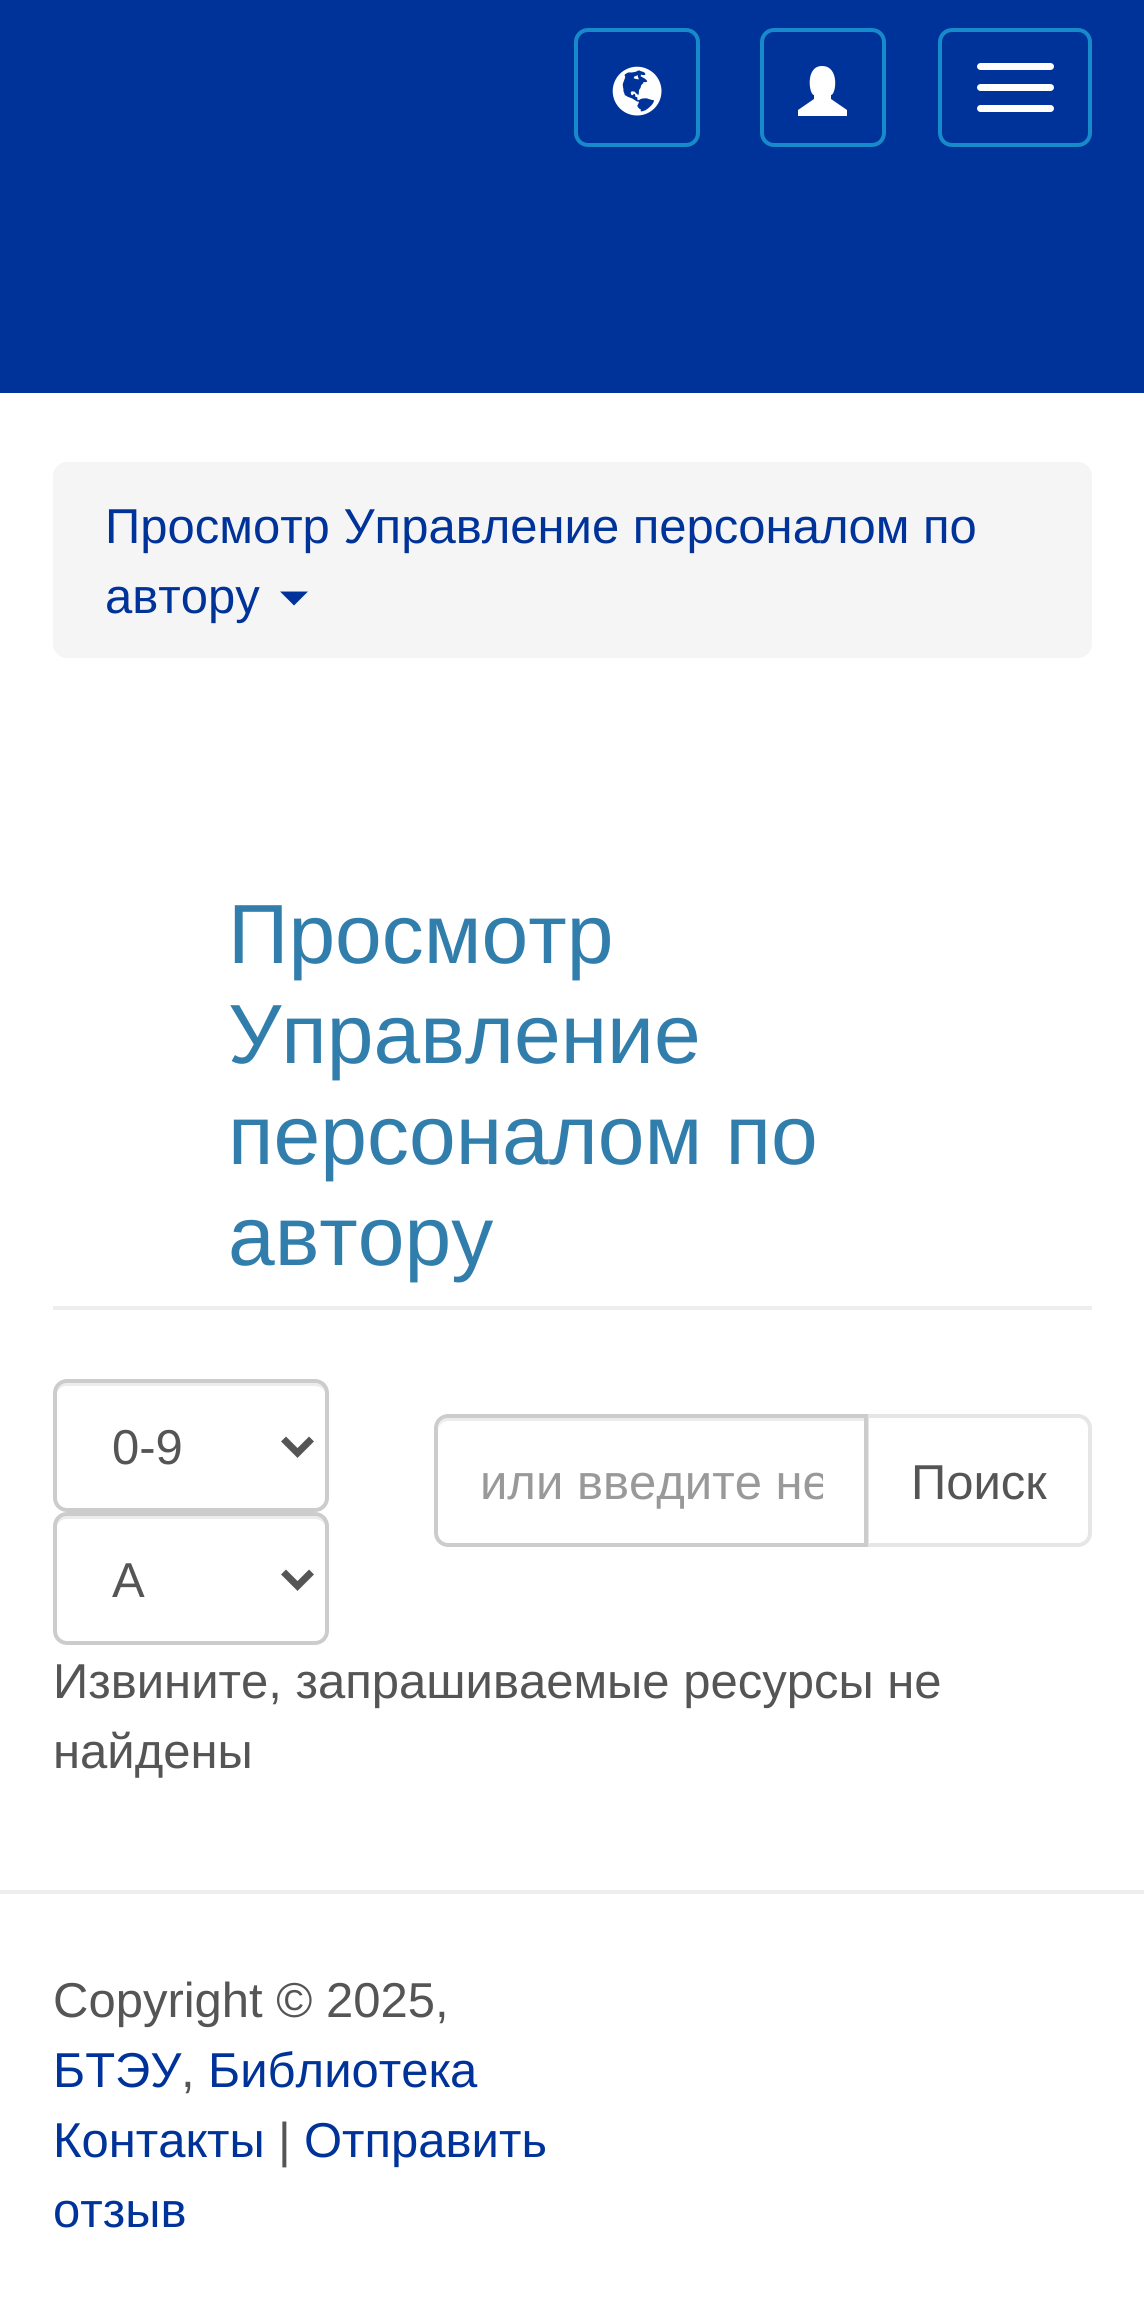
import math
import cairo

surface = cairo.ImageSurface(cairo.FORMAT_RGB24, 1144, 2308)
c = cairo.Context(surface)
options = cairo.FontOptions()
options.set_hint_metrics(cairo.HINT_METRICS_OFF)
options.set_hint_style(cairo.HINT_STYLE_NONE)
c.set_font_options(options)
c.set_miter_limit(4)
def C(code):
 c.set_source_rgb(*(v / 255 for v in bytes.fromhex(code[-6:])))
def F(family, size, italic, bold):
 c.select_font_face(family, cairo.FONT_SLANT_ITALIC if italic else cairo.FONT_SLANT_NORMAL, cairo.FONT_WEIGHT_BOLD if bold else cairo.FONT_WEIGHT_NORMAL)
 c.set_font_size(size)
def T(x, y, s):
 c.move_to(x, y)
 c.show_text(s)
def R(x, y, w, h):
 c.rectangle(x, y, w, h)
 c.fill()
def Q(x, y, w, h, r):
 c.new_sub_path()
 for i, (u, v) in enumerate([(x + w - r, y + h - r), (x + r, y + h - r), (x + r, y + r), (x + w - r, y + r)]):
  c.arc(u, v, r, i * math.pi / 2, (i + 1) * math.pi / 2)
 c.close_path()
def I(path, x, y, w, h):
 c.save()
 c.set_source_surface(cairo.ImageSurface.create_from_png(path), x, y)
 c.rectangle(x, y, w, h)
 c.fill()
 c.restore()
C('ffffff')
c.paint()
C('003399')
R(0,0,1144,393)
Q(576,30,122,115,12)
C('178acc')
c.set_line_width(4)
c.stroke()
I('1.png',612,66,50,50)
Q(762,30,122,115,12)
c.stroke()
C('ffffff')
c.new_path()
c.move_to(798,116)
c.line_to(798,110)
c.line_to(814,99)
c.line_to(814,95)
c.curve_to(809,95,805,66,822,66)
c.curve_to(840,66,836,95,831,95)
c.line_to(831,99)
c.line_to(847,110)
c.line_to(847,116)
c.close_path()
c.fill()
Q(940,30,150,115,12)
C('178acc')
c.stroke()
C('ffffff')
Q(977,63,77,7,3.5)
c.fill()
Q(977,84,77,7,3.5)
c.fill()
Q(977,105,77,7,3.5)
c.fill()
C('f5f5f5')
Q(53,462,1039,196,14)
c.fill()
F('Liberation Sans',49,0,0)
C('003399')
T(105,543,'Просмотр Управление персоналом по')
T(105,613,'автору')
c.new_path()
c.move_to(280,591.5)
c.line_to(308,591.5)
c.line_to(294,605.5)
c.close_path()
c.fill()
C('eeeeee')
R(53,1306,1039,4)
F('Liberation Sans',84,0,0)
C('317eac')
T(228,963,'Просмотр')
T(228,1063,'Управление')
T(228,1164,'персоналом по')
T(228,1265,'автору')
C('ececec')
c.new_path()
c.move_to(66,1386)
c.line_to(315,1386)
c.curve_to(321,1386,326,1391,326,1396)
c.line_to(326,1394)
c.curve_to(326,1388,321,1383,315,1383)
c.line_to(67,1383)
c.curve_to(61,1383,56,1388,56,1394)
c.line_to(56,1396)
c.curve_to(56,1391,61,1386,66,1386)
c.close_path()
c.fill()
Q(55,1381,272,129,12)
C('cccccc')
c.stroke()
c.new_path()
c.move_to(283.5,1439)
c.line_to(297.5,1453)
c.line_to(311.5,1439)
C('555555')
c.set_line_width(7)
c.stroke()
F('Liberation Sans',49,0,0)
T(112,1464,'0-9')
C('ececec')
c.new_path()
c.move_to(66,1519)
c.line_to(315,1519)
c.curve_to(321,1519,326,1524,326,1530)
c.line_to(326,1527)
c.curve_to(326,1521,321,1516,315,1516)
c.line_to(67,1516)
c.curve_to(61,1516,56,1521,56,1527)
c.line_to(56,1530)
c.curve_to(56,1524,61,1519,66,1519)
c.close_path()
c.fill()
Q(55,1514,272,129,12)
C('cccccc')
c.set_line_width(4)
c.stroke()
c.new_path()
c.move_to(283.5,1572)
c.line_to(297.5,1586)
c.line_to(311.5,1572)
C('555555')
c.set_line_width(7)
c.stroke()
T(112,1597,'А')
c.new_path()
c.move_to(867,1416)
c.line_to(1078,1416)
c.curve_to(1084.5,1416,1090,1421.5,1090,1428)
c.line_to(1090,1533)
c.curve_to(1090,1539.5,1084.5,1545,1078,1545)
c.line_to(867,1545)
c.close_path()
C('e6e6e6')
c.set_line_width(4)
c.stroke()
C('ffffff')
c.new_path()
c.move_to(448,1414)
c.line_to(868,1414)
c.line_to(868,1547)
c.line_to(448,1547)
c.curve_to(440.5,1547,434,1540.5,434,1533)
c.line_to(434,1428)
c.curve_to(434,1420.5,440.5,1414,448,1414)
c.close_path()
c.fill()
C('ececec')
c.new_path()
c.move_to(448,1421)
c.line_to(864,1421)
c.line_to(864,1544)
c.line_to(865,1544)
c.line_to(865,1418)
c.line_to(449,1418)
c.curve_to(441,1418,438,1425,438,1432)
c.curve_to(438,1426,442,1421,448,1421)
c.close_path()
c.fill()
c.new_path()
c.move_to(448,1416)
c.line_to(866,1416)
c.line_to(866,1545)
c.line_to(448,1545)
c.curve_to(441.5,1545,436,1539.5,436,1533)
c.line_to(436,1428)
c.curve_to(436,1421.5,441.5,1416,448,1416)
c.close_path()
C('cccccc')
c.stroke()
c.save()
c.rectangle(480,1453,343,56)
c.clip()
C('999999')
T(480,1499,'или введите не')
c.restore()
C('555555')
T(911,1499,'Поиск')
T(53,1698,'Извините, запрашиваемые ресурсы не')
T(53,1768,'найдены')
C('eeeeee')
R(0,1890,1144,4)
C('555555')
T(53,2017,'Copyright © 2025,')
C('003399')
T(53,2087,'БТЭУ')
C('555555')
T(181,2087,',')
C('003399')
T(208,2087,'Библиотека')
T(53,2157,'Контакты')
C('555555')
T(278,2157,'|')
C('003399')
T(304,2157,'Отправить')
T(53,2227,'отзыв')
surface.write_to_png('o.png')
